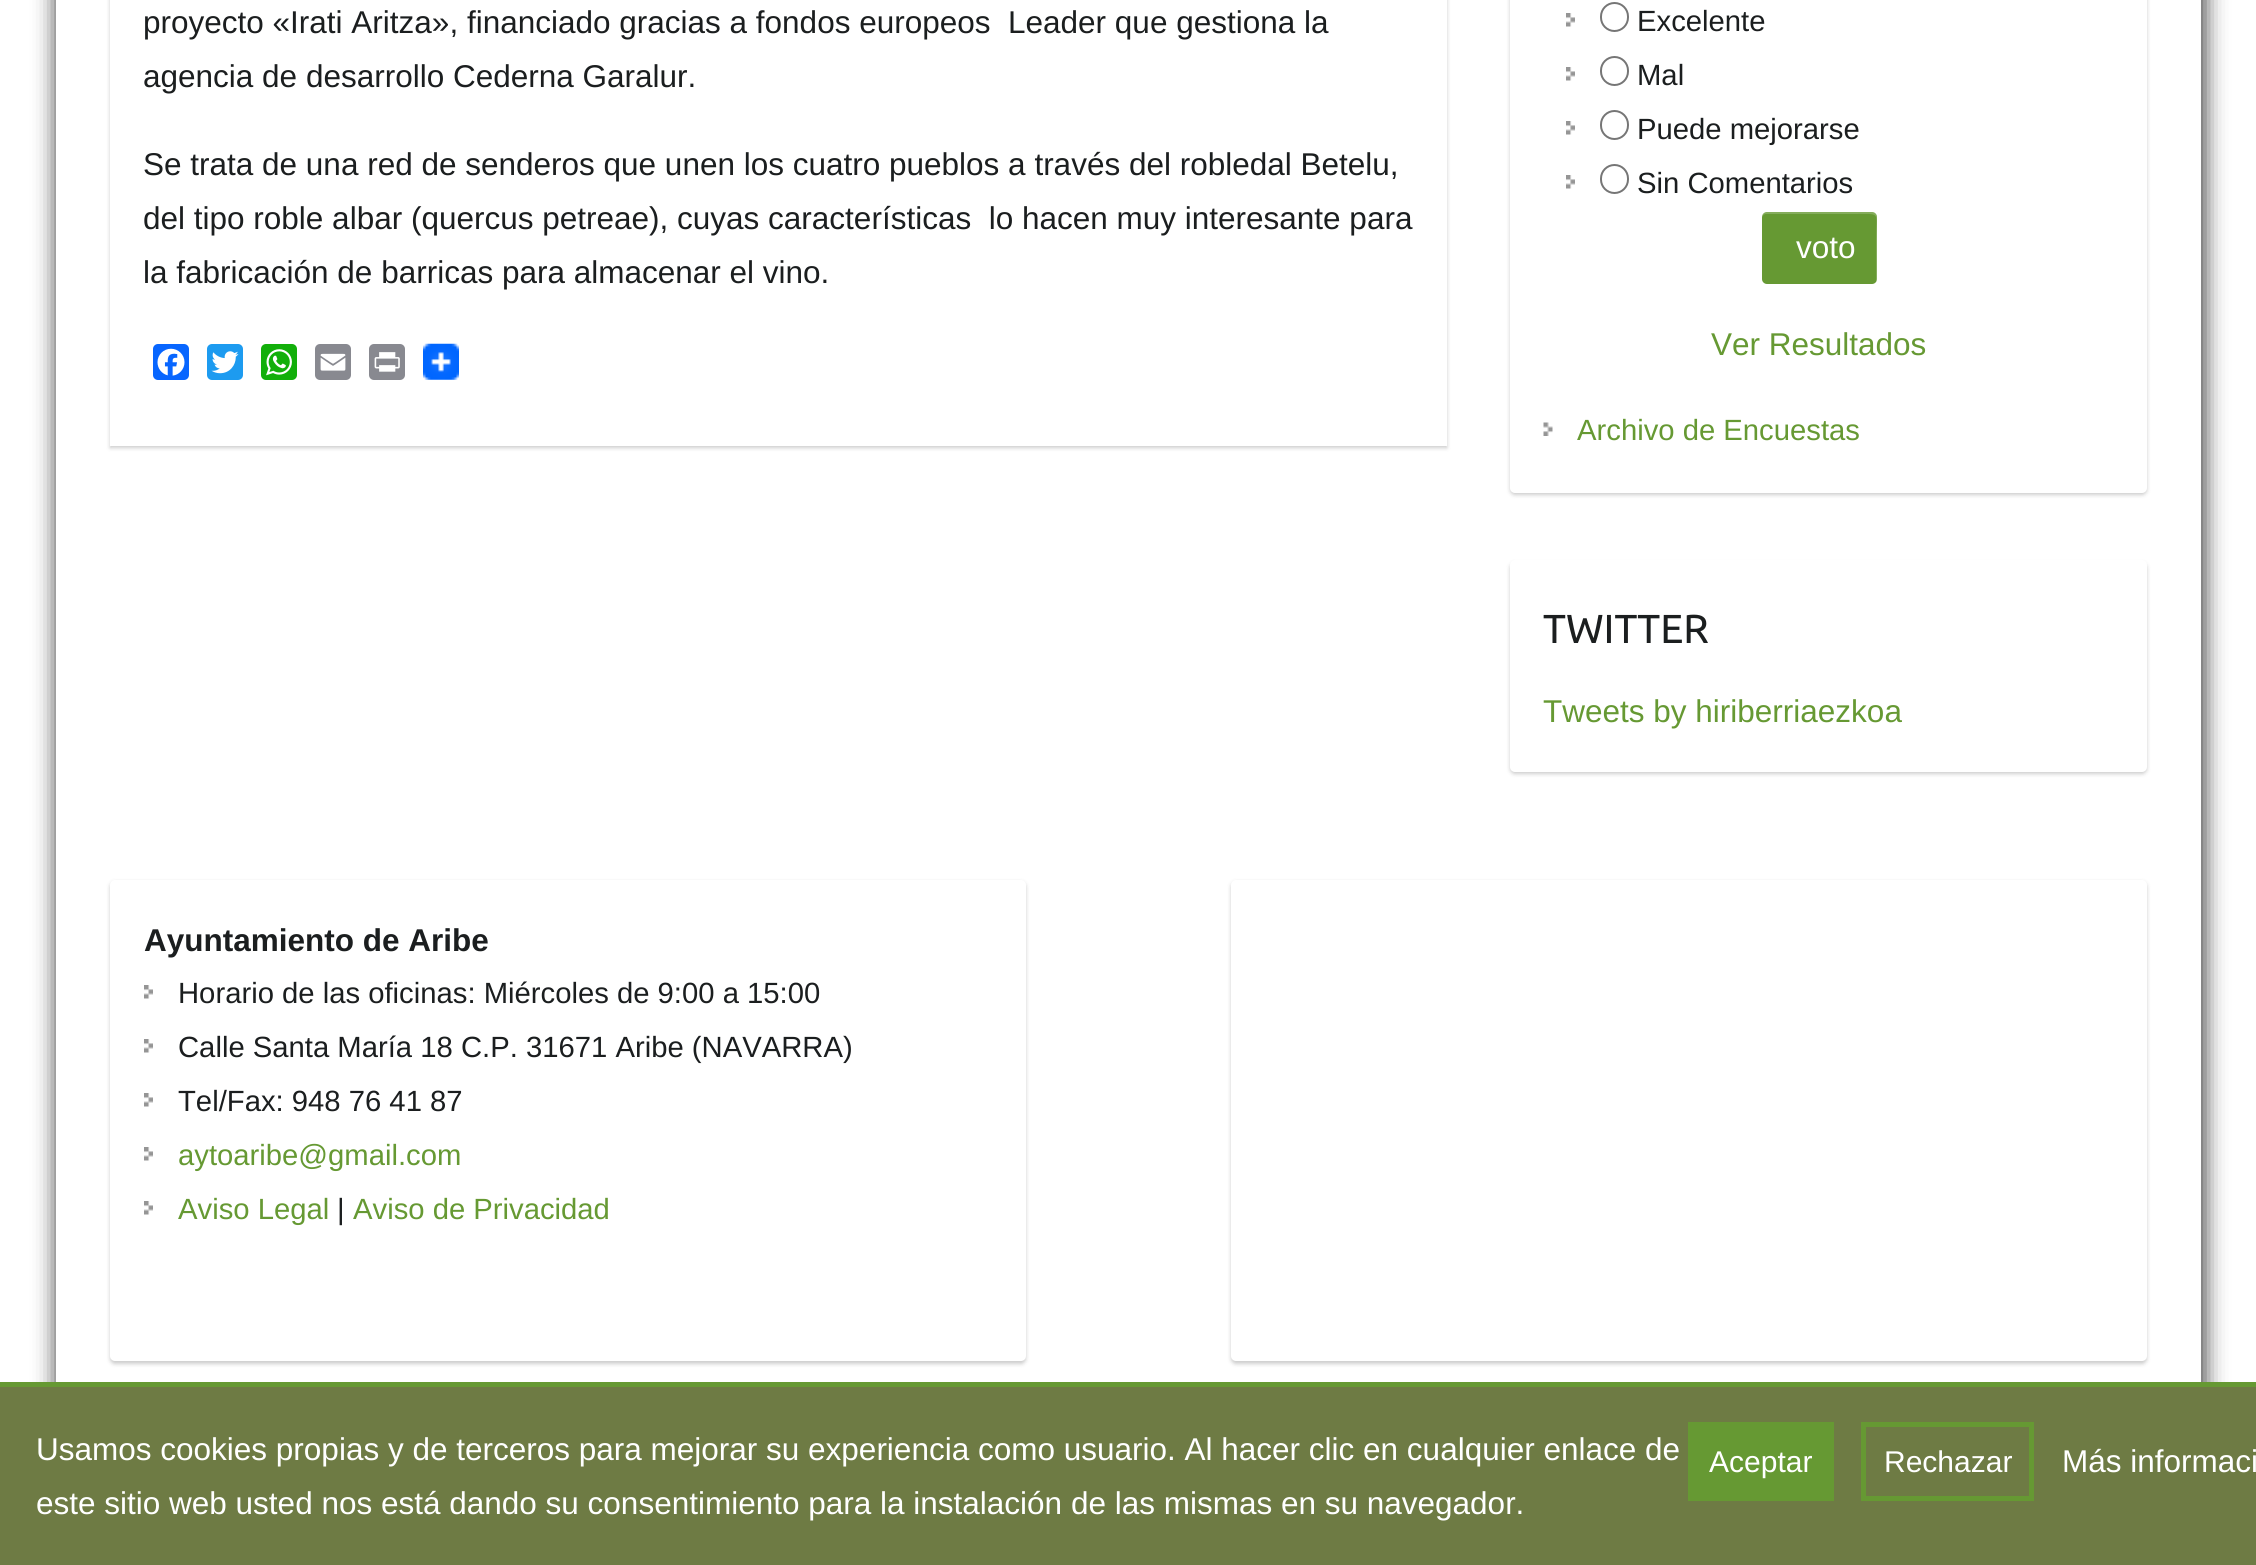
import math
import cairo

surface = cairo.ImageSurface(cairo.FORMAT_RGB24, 2256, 1565)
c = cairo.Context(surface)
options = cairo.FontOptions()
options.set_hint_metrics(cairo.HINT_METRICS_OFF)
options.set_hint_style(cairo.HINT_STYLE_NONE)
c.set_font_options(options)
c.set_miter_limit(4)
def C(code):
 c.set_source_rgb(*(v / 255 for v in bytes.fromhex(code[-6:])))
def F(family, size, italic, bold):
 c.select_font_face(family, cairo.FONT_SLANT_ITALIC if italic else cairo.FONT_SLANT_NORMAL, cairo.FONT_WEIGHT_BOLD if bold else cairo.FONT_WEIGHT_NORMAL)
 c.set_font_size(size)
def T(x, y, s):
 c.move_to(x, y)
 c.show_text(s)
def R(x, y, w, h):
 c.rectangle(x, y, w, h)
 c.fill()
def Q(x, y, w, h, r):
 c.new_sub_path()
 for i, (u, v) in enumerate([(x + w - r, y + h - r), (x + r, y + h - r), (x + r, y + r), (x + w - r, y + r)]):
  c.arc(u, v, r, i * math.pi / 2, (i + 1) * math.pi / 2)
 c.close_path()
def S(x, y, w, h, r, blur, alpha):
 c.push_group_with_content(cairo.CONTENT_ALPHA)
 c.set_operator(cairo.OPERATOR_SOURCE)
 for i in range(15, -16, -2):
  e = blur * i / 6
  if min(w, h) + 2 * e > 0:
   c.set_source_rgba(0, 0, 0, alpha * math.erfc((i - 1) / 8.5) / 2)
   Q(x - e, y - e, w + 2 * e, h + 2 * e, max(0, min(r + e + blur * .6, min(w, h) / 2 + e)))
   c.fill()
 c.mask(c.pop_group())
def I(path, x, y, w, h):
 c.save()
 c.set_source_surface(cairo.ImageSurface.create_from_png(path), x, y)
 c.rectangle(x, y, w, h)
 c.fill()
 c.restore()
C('ffffff')
c.paint()
C('000000')
S(56,-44,2149,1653,11,11,.75)
C('ffffff')
R(56,0,2145,1382)
C('000000')
S(110,-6,1337,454,0,2,.2)
C('ffffff')
R(110,0,1337,446)
F('Liberation Sans',31.5,0,0)
C('1b1e1f')
T(143,33,'proyecto «Irati Aritza», financiado gracias a fondos europeos  Leader que gestiona la')
T(143,87,'agencia de desarrollo Cederna Garalur.')
T(143,175,'Se trata de una red de senderos que unen los cuatro pueblos a través del robledal Betelu,')
T(143,229,'del tipo roble albar (quercus petreae), cuyas características  lo hacen muy interesante para')
T(143,283,'la fabricación de barricas para almacenar el vino.')
C('0866ff')
Q(153,344,36,36,5)
c.fill()
I('1.png',157,348,28,28)
C('1d9bf0')
Q(207,344,36,36,5)
c.fill()
I('2.png',211,351,28,23)
C('12af0a')
Q(261,344,36,36,5)
c.fill()
I('3.png',266,349,26,27)
C('888990')
Q(315,344,36,36,5)
c.fill()
I('4.png',320,353,26,18)
Q(369,344,36,36,5)
c.fill()
I('5.png',374,352,26,20)
I('6.png',423,343,36,37)
C('000000')
S(1510,-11,637,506,5,2,.2)
C('ffffff')
Q(1510,-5,637,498,5)
c.fill()
I('7.png',1566,13,9,14)
Q(1601,3,27,28,13.5)
C('767676')
c.stroke()
F('Liberation Sans',29.25,0,0)
C('1b1e1f')
T(1637,31,'Excelente')
I('7.png',1566,67,9,14)
Q(1601,57,27,28,13.5)
C('767676')
c.stroke()
C('1b1e1f')
T(1637,85,'Mal')
I('7.png',1566,121,9,14)
Q(1601,111,27,28,13.5)
C('767676')
c.stroke()
C('1b1e1f')
T(1637,139,'Puede mejorarse')
I('7.png',1566,175,9,14)
Q(1601,165,27,28,13.5)
C('767676')
c.stroke()
C('1b1e1f')
T(1637,193,'Sin Comentarios')
C('669933')
Q(1762,212,115,72,5)
c.fill()
c.set_source_rgba(1,1,1,0.2)
c.new_path()
c.move_to(1766,214)
c.line_to(1854,214)
c.curve_to(1882,214,1876,211,1876,239)
c.line_to(1876,282)
c.curve_to(1877,281,1877,280,1877,279)
c.line_to(1877,217)
c.curve_to(1877,214,1875,212,1872,212)
c.line_to(1767,212)
c.curve_to(1764,212,1762,214,1762,217)
c.line_to(1762,218)
c.curve_to(1762,216,1764,214,1766,214)
c.close_path()
c.fill()
F('Liberation Sans',31.5,0,0)
C('ffffff')
T(1796,258,'voto')
C('669933')
T(1711,355,'Ver Resultados')
I('8.png',1543,422,10,14)
F('Liberation Sans',29.25,0,0)
T(1577,440,'Archivo de Encuestas')
C('000000')
S(1510,563,637,211,5,2,.2)
C('ffffff')
Q(1510,560,637,212,5)
c.fill()
F('Ubuntu',40.5,0,0)
C('1b1e1f')
T(1543,643,'TWITTER')
F('Liberation Sans',31.5,0,0)
C('669933')
T(1543,722,'Tweets by hiriberriaezkoa')
C('000000')
S(110,882,916,482,5,2,.2)
C('ffffff')
Q(110,880,916,481,5)
c.fill()
F('Liberation Sans',31.5,0,1)
C('1b1e1f')
T(144,951,'Ayuntamiento de Aribe')
I('9.png',144,985,9,14)
F('Liberation Sans',29.25,0,0)
T(178,1003,'Horario de las oficinas: Miércoles de 9:00 a 15:00')
I('9.png',144,1039,9,14)
T(178,1057,'Calle Santa María 18 C.P. 31671 Aribe (NAVARRA)')
I('9.png',144,1093,9,14)
T(178,1111,'Tel/Fax: 948 76 41 87')
I('9.png',144,1147,9,14)
C('669933')
T(178,1165,'aytoaribe@gmail.com')
I('9.png',144,1201,9,14)
T(178,1219,'Aviso Legal')
C('1b1e1f')
T(337,1219,'|')
C('669933')
T(353,1219,'Aviso de Privacidad')
C('000000')
S(1231,882,916,482,5,2,.2)
C('ffffff')
Q(1231,880,916,481,5)
c.fill()
C('6e7b44')
R(0,1387,2256,178)
C('669933')
R(0,1382,2256,5)
F('Liberation Sans',31.5,0,0)
C('ffffff')
T(36,1460,'Usamos cookies propias y de terceros para mejorar su experiencia como usuario. Al hacer clic en cualquier enlace de')
T(36,1514,'este sitio web usted nos está dando su consentimiento para la instalación de las mismas en su navegador.')
C('669933')
R(1688,1422,146,79)
F('Liberation Sans',30,0,0)
C('ffffff')
T(1709,1472,'Aceptar')
c.rectangle(1863.5,1424.5,168,74)
C('669933')
c.set_line_width(5)
c.stroke()
C('ffffff')
T(1884,1472,'Rechazar')
F('Liberation Sans',31.5,0,0)
T(2062,1472,'Más informaci')
surface.write_to_png('o.png')
